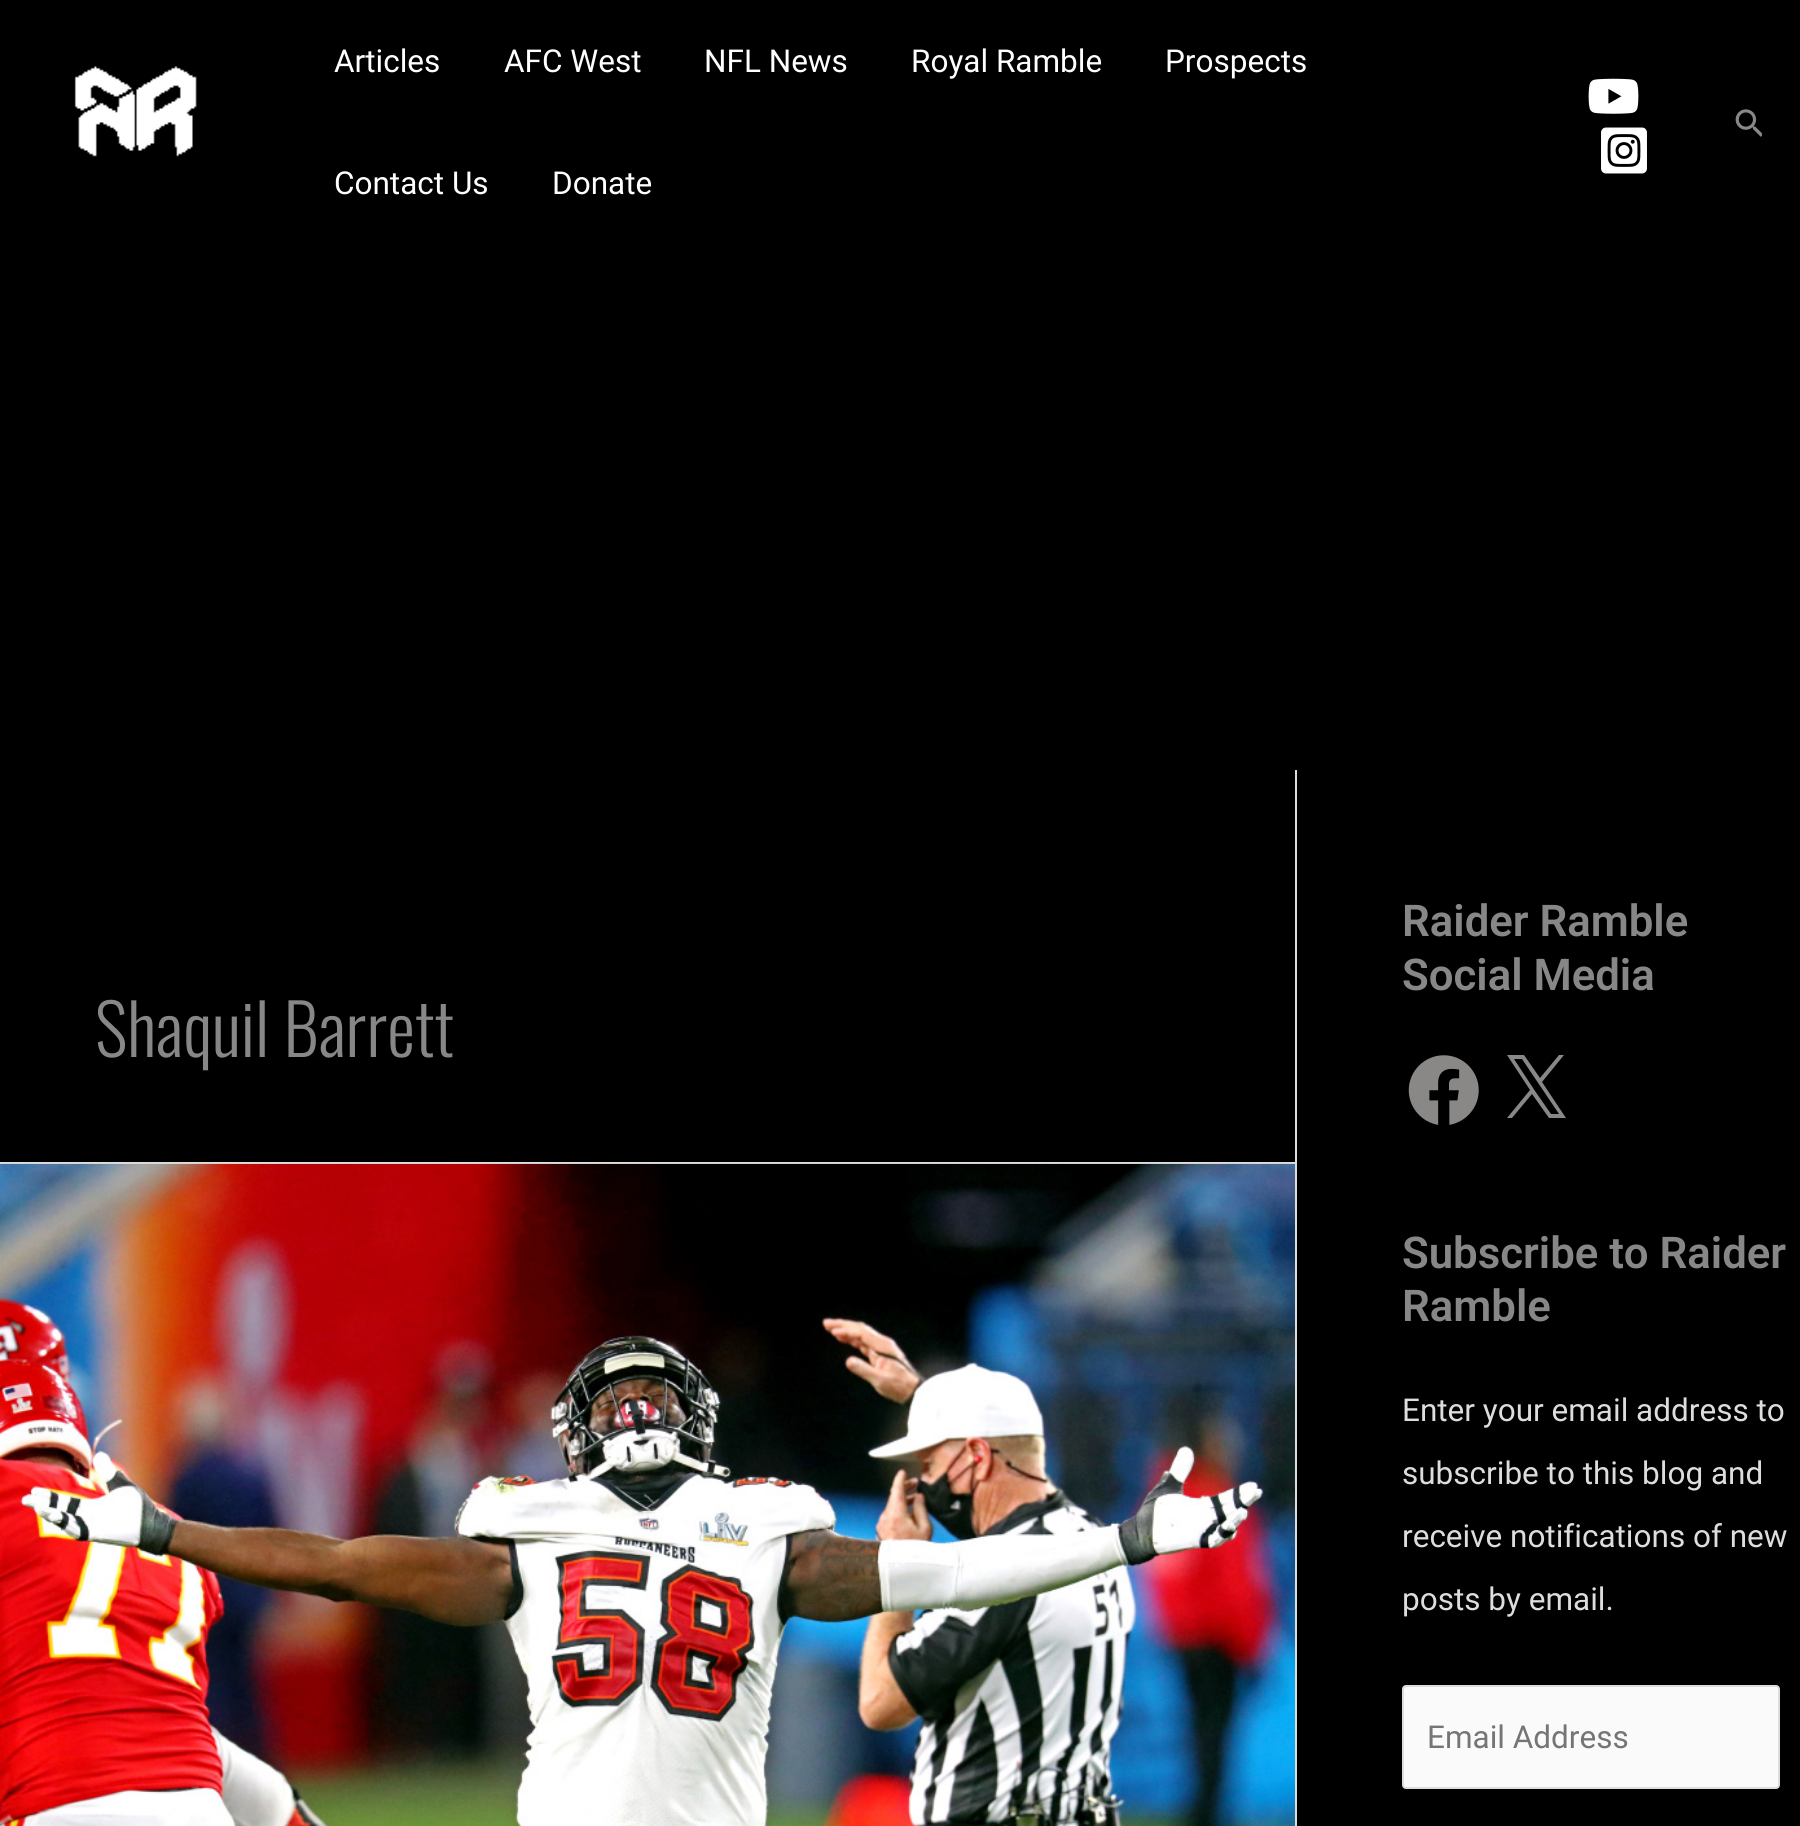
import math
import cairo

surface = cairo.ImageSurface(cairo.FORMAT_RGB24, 1800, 1826)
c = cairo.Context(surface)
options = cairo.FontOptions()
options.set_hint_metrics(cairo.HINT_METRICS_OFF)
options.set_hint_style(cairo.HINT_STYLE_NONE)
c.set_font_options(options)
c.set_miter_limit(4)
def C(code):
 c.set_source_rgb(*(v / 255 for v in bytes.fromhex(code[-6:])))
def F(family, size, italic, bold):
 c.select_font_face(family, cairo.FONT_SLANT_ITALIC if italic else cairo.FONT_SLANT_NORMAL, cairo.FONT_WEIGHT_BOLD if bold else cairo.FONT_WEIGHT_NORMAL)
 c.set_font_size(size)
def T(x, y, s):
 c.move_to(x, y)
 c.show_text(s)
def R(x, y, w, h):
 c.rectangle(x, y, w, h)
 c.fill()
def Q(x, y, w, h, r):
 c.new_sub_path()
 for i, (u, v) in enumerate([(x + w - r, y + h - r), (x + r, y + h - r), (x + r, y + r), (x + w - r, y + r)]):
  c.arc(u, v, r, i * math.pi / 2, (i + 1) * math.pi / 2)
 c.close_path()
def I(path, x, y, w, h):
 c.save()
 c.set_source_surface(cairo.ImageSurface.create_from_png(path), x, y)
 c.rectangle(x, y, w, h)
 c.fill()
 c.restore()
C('000000')
c.paint()
I('1.png',74,66,123,91)
F('Roboto',31.5,0,0)
C('ffffff')
T(334,72,'Articles')
T(504,72,'AFC West')
T(704,72,'NFL News')
T(911,72,'Royal Ramble')
T(1165,72,'Prospects')
T(334,194,'Contact Us')
T(552,194,'Donate')
I('2.png',1588,78,51,36)
I('3.png',1601,127,46,47)
I('4.png',1735,109,27,28)
C('dddddd')
R(1295,770,2,1056)
R(0,1162,1295,2)
F('Oswald Light',70,0,0)
C('878787')
T(95,1057,'Shaquil Barrett')
I('5.png',0,1163,1295,663)
F('Roboto SemiBold',43.75,0,0)
T(1402,936,'Raider Ramble')
T(1402,990,'Social Media')
I('6.png',1408,1055,71,70)
C('8a8787')
c.new_path()
c.move_to(1542,1082)
c.line_to(1564,1055)
c.line_to(1559,1055)
c.line_to(1540,1078)
c.line_to(1524,1055)
c.line_to(1507,1055)
c.line_to(1530,1090)
c.line_to(1507,1118)
c.line_to(1512,1118)
c.line_to(1532,1094)
c.line_to(1549,1118)
c.line_to(1566,1118)
c.close_path()
c.move_to(1535,1091)
c.line_to(1514,1059)
c.line_to(1522,1059)
c.line_to(1559,1114)
c.line_to(1551,1114)
c.close_path()
c.fill()
C('878787')
T(1402,1268,'Subscribe to Raider')
T(1402,1321,'Ramble')
F('Roboto',31.5,0,0)
C('dddddd')
T(1402,1421,'Enter your email address to')
T(1402,1484,'subscribe to this blog and')
T(1402,1547,'receive notifications of new')
T(1402,1610,'posts by email.')
C('fafafa')
Q(1403,1686,376,102,3)
c.fill_preserve()
C('dddddd')
c.stroke()
C('757575')
T(1427,1748,'Email Address')
surface.write_to_png('o.png')
